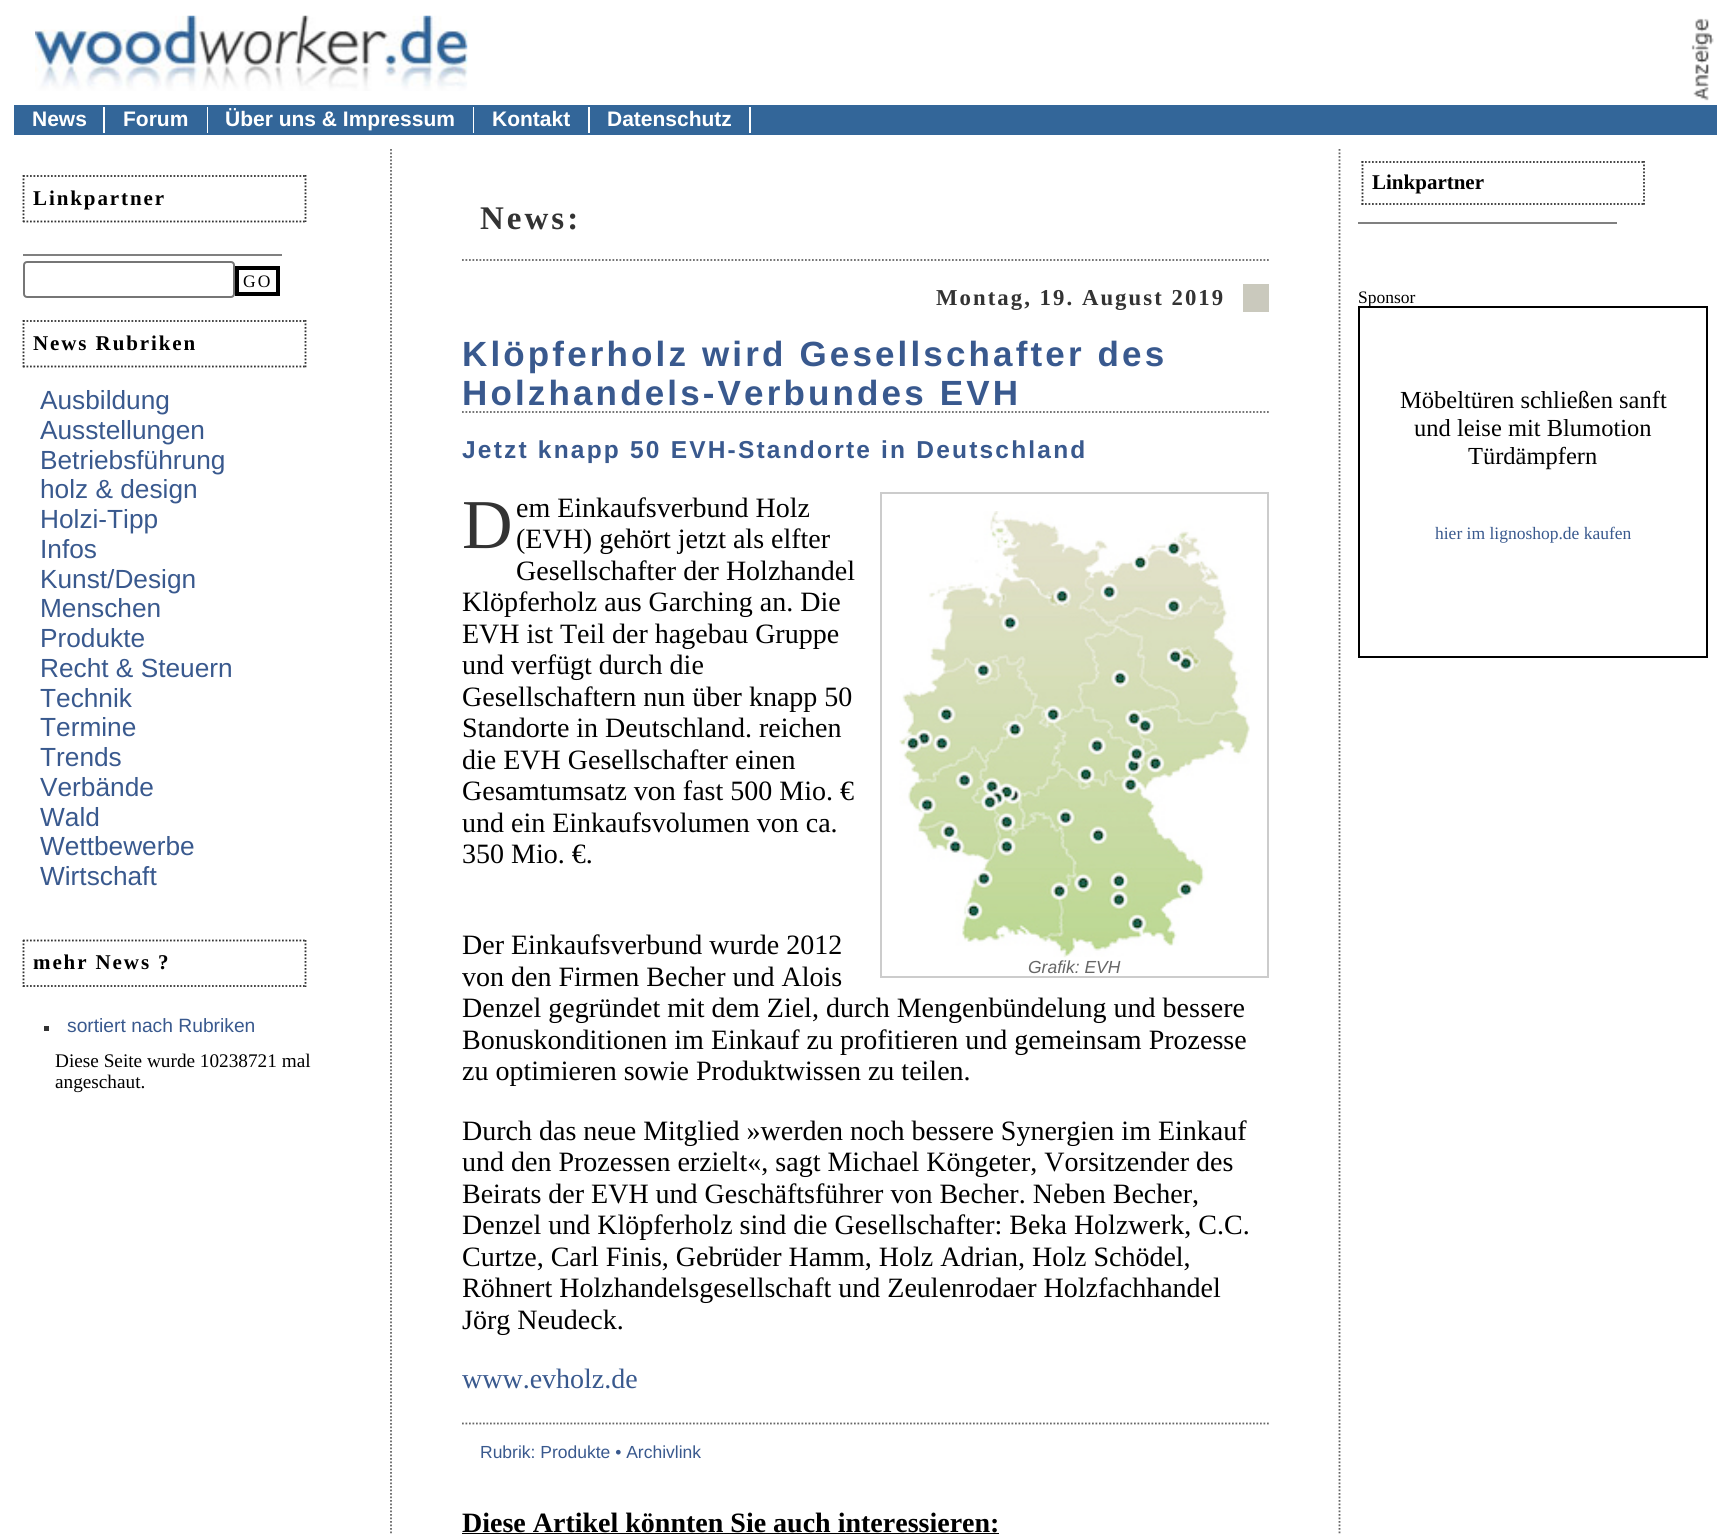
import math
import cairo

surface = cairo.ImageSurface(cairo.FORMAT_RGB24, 1730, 1534)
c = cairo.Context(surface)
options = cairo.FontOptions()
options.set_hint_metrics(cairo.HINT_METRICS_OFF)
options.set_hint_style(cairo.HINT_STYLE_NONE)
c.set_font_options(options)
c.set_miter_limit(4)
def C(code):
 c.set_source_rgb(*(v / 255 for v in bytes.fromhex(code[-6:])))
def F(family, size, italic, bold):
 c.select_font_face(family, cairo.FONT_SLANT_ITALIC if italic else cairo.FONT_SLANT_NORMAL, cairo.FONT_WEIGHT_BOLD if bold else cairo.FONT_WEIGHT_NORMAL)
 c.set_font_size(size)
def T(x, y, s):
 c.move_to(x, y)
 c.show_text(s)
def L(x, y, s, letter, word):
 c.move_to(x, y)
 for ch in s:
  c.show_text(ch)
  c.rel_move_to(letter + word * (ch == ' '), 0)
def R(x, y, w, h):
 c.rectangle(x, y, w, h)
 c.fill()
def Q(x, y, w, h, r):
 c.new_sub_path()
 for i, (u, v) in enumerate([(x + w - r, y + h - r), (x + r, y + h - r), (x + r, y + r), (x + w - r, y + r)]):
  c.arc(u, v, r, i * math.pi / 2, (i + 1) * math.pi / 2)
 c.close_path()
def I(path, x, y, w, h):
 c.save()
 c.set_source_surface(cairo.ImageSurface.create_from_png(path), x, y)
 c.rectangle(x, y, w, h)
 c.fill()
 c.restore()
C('ffffff')
c.paint()
I('1.png',35,15,433,76)
I('2.png',1691,18,23,83)
C('336699')
R(14,105,1703,30)
F('Liberation Sans',21,0,1)
C('ffffff')
T(32,126,'News')
R(103,107,2,26)
T(123,126,'Forum')
R(207,107,1,26)
T(225,126,'Über uns & Impressum')
R(473,107,1,26)
T(492,126,'Kontakt')
R(588,107,2,26)
T(607,126,'Datenschutz')
R(749,107,2,26)
c.new_path()
c.move_to(23,176)
c.line_to(306,176)
C('333333')
c.set_line_width(1.8)
c.set_dash([1.75,1.75])
c.stroke()
c.new_path()
c.move_to(305.5,175)
c.line_to(305.5,222)
c.stroke()
c.new_path()
c.move_to(23,221.5)
c.line_to(306,221.5)
c.stroke()
c.new_path()
c.move_to(23.5,175)
c.line_to(23.5,222)
c.stroke()
F('Liberation Serif',21,0,1)
C('000000')
L(33,205,'Linkpartner',1.9,0)
C('808080')
R(23,254,259,2)
Q(24,262,210,35,3)
C('767676')
c.set_line_width(2)
c.set_dash([])
c.stroke()
c.rectangle(237,268,41,26)
C('000000')
c.set_line_width(4)
c.stroke()
F('Liberation Serif',17.5,0,0)
L(243,287,'GO',2,0)
c.new_path()
c.move_to(23,321)
c.line_to(306,321)
C('333333')
c.set_line_width(1.8)
c.set_dash([1.75,1.75])
c.stroke()
c.new_path()
c.move_to(305.5,320)
c.line_to(305.5,367.5)
c.stroke()
c.new_path()
c.move_to(23,366.5)
c.line_to(306,366.5)
c.stroke()
c.new_path()
c.move_to(23.5,320)
c.line_to(23.5,367.5)
c.stroke()
F('Liberation Serif',21,0,1)
C('000000')
L(33,350,'News Rubriken',1.9,0)
F('Liberation Sans',26.25,0,0)
C('39598e')
T(40,409,'Ausbildung')
T(40,439,'Ausstellungen')
T(40,469,'Betriebsführung')
T(40,498,'holz & design')
T(40,528,'Holzi-Tipp')
T(40,558,'Infos')
T(40,588,'Kunst/Design')
T(40,617,'Menschen')
T(40,647,'Produkte')
T(40,677,'Recht & Steuern')
T(40,707,'Technik')
T(40,736,'Termine')
T(40,766,'Trends')
T(40,796,'Verbände')
T(40,826,'Wald')
T(40,855,'Wettbewerbe')
T(40,885,'Wirtschaft')
c.new_path()
c.move_to(23,940.5)
c.line_to(306,940.5)
C('333333')
c.stroke()
c.new_path()
c.move_to(305.5,940)
c.line_to(305.5,987)
c.stroke()
c.new_path()
c.move_to(23,986)
c.line_to(306,986)
c.stroke()
c.new_path()
c.move_to(23.5,940)
c.line_to(23.5,987)
c.stroke()
F('Liberation Serif',21,0,1)
C('000000')
L(33,969,'mehr News ?',1.9,0)
C('333333')
R(44,1026,5,5)
F('Liberation Sans',19.25,0,0)
C('39598e')
T(67,1032,'sortiert nach Rubriken')
F('Liberation Serif',19.25,0,0)
C('000000')
T(55,1067,'Diese Seite wurde 10238721 mal')
T(55,1088,'angeschaut.')
c.new_path()
c.move_to(1339.5,149)
c.line_to(1339.5,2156)
C('666666')
c.stroke()
c.new_path()
c.move_to(391,149)
c.line_to(391,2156)
c.stroke()
c.new_path()
c.move_to(462,260)
c.line_to(1269,260)
c.stroke()
F('Liberation Serif',33,0,1)
C('333333')
L(480,229,'News:',3,0)
C('cac9bd')
R(1243,284,26,28)
F('Liberation Serif',22.75,0,1)
C('333333')
L(936,305,'Montag, 19. August 2019',2.05,0)
c.new_path()
c.move_to(462,412)
c.line_to(1269,412)
C('666666')
c.stroke()
F('Liberation Sans',35,0,1)
C('39598e')
L(462,366,'Klöpferholz wird Gesellschafter des',3.15,0)
L(462,405,'Holzhandels-Verbundes EVH',3.15,0)
F('Liberation Sans',24.5,0,1)
L(462,458,'Jetzt knapp 50 EVH-Standorte in Deutschland',2.2,0)
F('Liberation Serif',70,0,0)
C('333333')
T(462,548,'D')
F('Liberation Serif',28,0,0)
C('000000')
T(516,517,'em Einkaufsverbund Holz')
T(516,548,'(EVH) gehört jetzt als elfter')
T(516,580,'Gesellschafter der Holzhandel')
T(462,611,'Klöpferholz aus Garching an. Die')
T(462,643,'EVH ist Teil der hagebau Gruppe')
T(462,674,'und verfügt durch die')
T(462,706,'Gesellschaftern nun über knapp 50')
T(462,737,'Standorte in Deutschland. reichen')
T(462,769,'die EVH Gesellschafter einen')
T(462,800,'Gesamtumsatz von fast 500 Mio. €')
T(462,832,'und ein Einkaufsvolumen von ca.')
T(462,863,'350 Mio. €.')
T(462,954,'Der Einkaufsverbund wurde 2012')
T(462,986,'von den Firmen Becher und Alois')
T(462,1017,'Denzel gegründet mit dem Ziel, durch Mengenbündelung und bessere')
T(462,1049,'Bonuskonditionen im Einkauf zu profitieren und gemeinsam Prozesse')
T(462,1080,'zu optimieren sowie Produktwissen zu teilen.')
c.rectangle(881,493,387,484)
C('cccccc')
c.set_line_width(2)
c.set_dash([])
c.stroke()
I('3.png',899,511,351,447)
F('Liberation Sans',17.5,1,0)
C('666666')
T(1028,973,'Grafik: EVH')
F('Liberation Serif',28,0,0)
C('000000')
T(462,1140,'Durch das neue Mitglied »werden noch bessere Synergien im Einkauf')
T(462,1171,'und den Prozessen erzielt«, sagt Michael Köngeter, Vorsitzender des')
T(462,1203,'Beirats der EVH und Geschäftsführer von Becher. Neben Becher,')
T(462,1234,'Denzel und Klöpferholz sind die Gesellschafter: Beka Holzwerk, C.C.')
T(462,1266,'Curtze, Carl Finis, Gebrüder Hamm, Holz Adrian, Holz Schödel,')
T(462,1297,'Röhnert Holzhandelsgesellschaft und Zeulenrodaer Holzfachhandel')
T(462,1329,'Jörg Neudeck.')
C('39598e')
T(462,1388,'www.evholz.de')
c.new_path()
c.move_to(462,1423.5)
c.line_to(1269,1423.5)
C('666666')
c.set_line_width(1.8)
c.set_dash([1.75,1.75])
c.stroke()
F('Liberation Sans',17.5,0,0)
C('39598e')
T(480,1458,'Rubrik: Produkte • Archivlink')
F('Liberation Serif',28,0,1)
C('000000')
T(462,1532,'Diese Artikel könnten Sie auch interessieren:')
R(462,1533,537,1)
c.new_path()
c.move_to(1361.5,162)
c.line_to(1645,162)
C('333333')
c.stroke()
c.new_path()
c.move_to(1644,161)
c.line_to(1644,205)
c.stroke()
c.new_path()
c.move_to(1361.5,204)
c.line_to(1645,204)
c.stroke()
c.new_path()
c.move_to(1362.5,161)
c.line_to(1362.5,205)
c.stroke()
F('Liberation Serif',21,0,1)
C('000000')
T(1372,189,'Linkpartner')
C('808080')
R(1358,222,259,2)
c.rectangle(1359,307,348,350)
C('000000')
c.set_line_width(2)
c.set_dash([])
c.stroke()
F('Liberation Serif',17.5,0,0)
T(1358,303,'Sponsor')
F('Liberation Serif',24.5,0,0)
T(1400,408,'Möbeltüren schließen sanft')
T(1414,436,'und leise mit Blumotion')
T(1468,464,'Türdämpfern')
F('Liberation Serif',17.5,0,0)
C('39598e')
T(1435,539,'hier im lignoshop.de kaufen')
surface.write_to_png('o.png')
